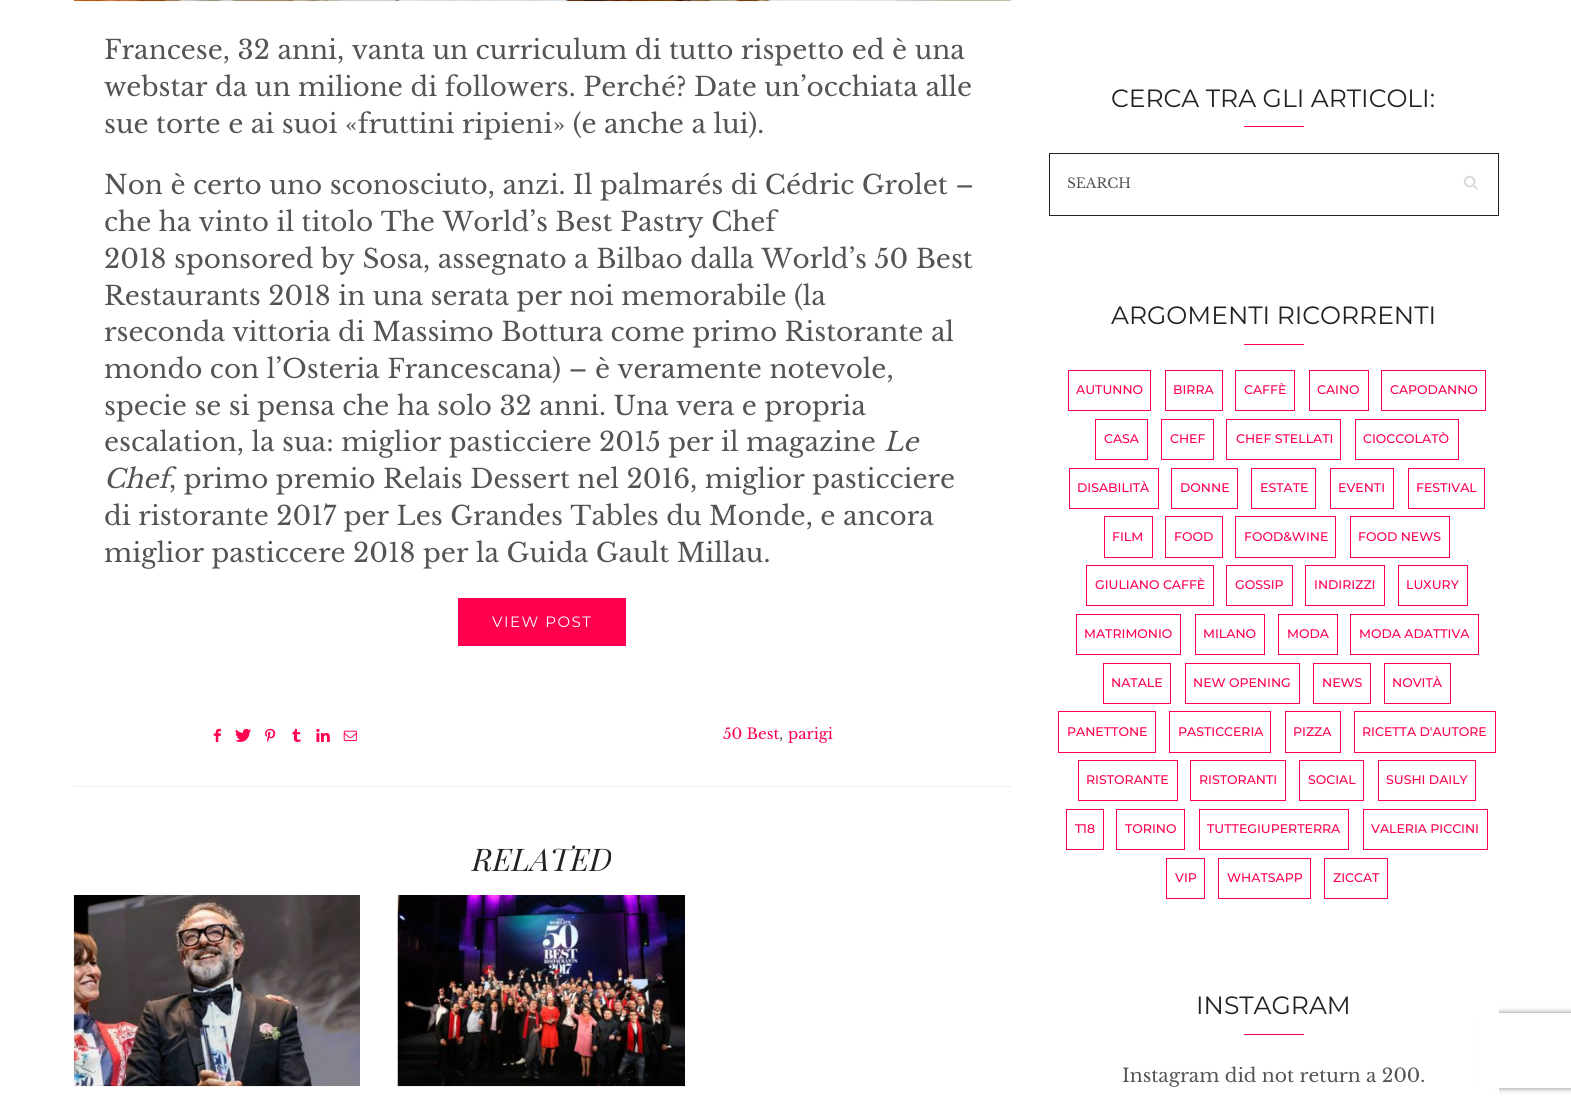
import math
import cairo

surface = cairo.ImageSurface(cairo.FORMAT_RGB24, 1571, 1104)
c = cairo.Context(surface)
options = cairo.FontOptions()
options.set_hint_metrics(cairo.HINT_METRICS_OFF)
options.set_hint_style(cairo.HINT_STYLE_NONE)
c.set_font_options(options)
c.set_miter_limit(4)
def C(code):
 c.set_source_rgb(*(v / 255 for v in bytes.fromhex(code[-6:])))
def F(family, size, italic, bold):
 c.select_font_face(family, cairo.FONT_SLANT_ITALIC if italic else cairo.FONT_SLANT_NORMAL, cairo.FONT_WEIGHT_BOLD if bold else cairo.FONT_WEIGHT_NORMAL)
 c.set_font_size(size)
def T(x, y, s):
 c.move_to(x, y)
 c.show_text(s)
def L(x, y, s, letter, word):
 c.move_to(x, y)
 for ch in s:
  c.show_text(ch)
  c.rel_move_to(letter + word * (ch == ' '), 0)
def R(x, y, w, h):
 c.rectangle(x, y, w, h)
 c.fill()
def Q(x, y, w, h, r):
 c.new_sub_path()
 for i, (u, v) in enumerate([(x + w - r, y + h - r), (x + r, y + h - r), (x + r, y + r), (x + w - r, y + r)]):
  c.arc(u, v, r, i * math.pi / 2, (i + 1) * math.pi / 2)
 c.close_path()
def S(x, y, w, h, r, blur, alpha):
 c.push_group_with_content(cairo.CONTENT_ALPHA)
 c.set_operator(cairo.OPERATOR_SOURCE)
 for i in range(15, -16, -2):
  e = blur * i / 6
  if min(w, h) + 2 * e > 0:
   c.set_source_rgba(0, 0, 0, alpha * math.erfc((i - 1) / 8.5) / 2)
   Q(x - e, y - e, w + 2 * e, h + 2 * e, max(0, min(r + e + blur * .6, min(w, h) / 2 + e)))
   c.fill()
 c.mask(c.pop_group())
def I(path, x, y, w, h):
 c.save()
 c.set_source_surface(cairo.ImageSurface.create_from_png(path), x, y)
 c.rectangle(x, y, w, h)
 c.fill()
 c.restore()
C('ffffff')
c.paint()
C('eeeeee')
R(74,786,937,1)
I('1.png',73,0,939,2)
F('Libre Baskerville',26.25,0,0)
C('545454')
T(104,59,'Francese, 32 anni, vanta un curriculum di tutto rispetto ed è una')
T(104,96,'webstar da un milione di followers. Perché? Date un’occhiata alle')
T(104,133,'sue torte e ai suoi «fruttini ripieni» (e anche a lui).')
T(104,194,'Non è certo uno sconosciuto, anzi. Il palmarés di Cédric Grolet –')
T(104,231,'che ha vinto il titolo The World’s Best Pastry Chef')
T(104,268,'2018 sponsored by Sosa, assegnato a Bilbao dalla World’s 50 Best')
T(104,305,'Restaurants 2018 in una serata per noi memorabile (la')
T(104,341,'rseconda vittoria di Massimo Bottura come primo Ristorante al')
T(104,378,'mondo con l’Osteria Francescana) – è veramente notevole,')
T(104,415,'specie se si pensa che ha solo 32 anni. Una vera e propria')
T(104,451,'escalation, la sua: miglior pasticciere 2015 per il magazine')
F('Libre Baskerville',26.25,1,0)
T(884,451,'Le')
T(104,488,'Chef')
F('Libre Baskerville',26.25,0,0)
T(169,488,', primo premio Relais Dessert nel 2016, miglior pasticciere')
T(104,525,'di ristorante 2017 per Les Grandes Tables du Monde, e ancora')
T(104,562,'miglior pasticcere 2018 per la Guida Gault Millau.')
C('ff004e')
R(458,598,168,48)
F('Montserrat',15,0,0)
C('ffffff')
L(492,627,'VIEW POST',1.5,0)
I('2.png',213,728,8,14)
I('3.png',235,728,16,14)
I('4.png',265,728,11,14)
I('5.png',292,728,9,14)
I('6.png',316,728,14,14)
I('7.png',343,730,14,12)
F('Libre Baskerville',15,0,0)
C('ff004e')
T(723,739,'50 Best')
C('545454')
T(779,739,',')
C('ff004e')
T(788,739,'parigi')
F('Playfair Display SC',31.25,1,0)
C('222222')
T(472,871,'RELATED')
I('8.png',73,895,287,192)
I('9.png',397,895,288,192)
F('Montserrat',25,0,0)
T(1111,107,'CERCA TRA GLI ARTICOLI:')
C('ff004e')
R(1244,126,60,1)
c.rectangle(1049.5,153.5,449,62)
C('222222')
c.set_line_width(1)
c.stroke()
c.save()
c.rectangle(1068,169,412,31)
c.clip()
F('Libre Baskerville',13.75,0,0)
C('545454')
T(1067,188,'SEARCH')
c.restore()
I('10.png',1463,175,15,15)
T(1111,324,'ARGOMENTI RICORRENTI')
C('ff004e')
R(1244,344,60,1)
c.rectangle(1068.5,370.5,82,40)
c.stroke()
F('Montserrat Medium',12.5,0,0)
T(1076,394,'AUTUNNO')
c.rectangle(1165.5,370.5,57,40)
c.stroke()
T(1173,394,'BIRRA')
c.rectangle(1235.5,370.5,59,40)
c.stroke()
T(1244,394,'CAFFÈ')
c.rectangle(1309.5,370.5,59,40)
c.stroke()
T(1317,394,'CAINO')
c.rectangle(1381.5,370.5,104,40)
c.stroke()
T(1390,394,'CAPODANNO')
c.rectangle(1095.5,419.5,52,40)
c.stroke()
T(1104,443,'CASA')
c.rectangle(1161.5,419.5,52,40)
c.stroke()
T(1170,443,'CHEF')
c.rectangle(1226.5,419.5,114,40)
c.stroke()
T(1236,443,'CHEF STELLATI')
c.rectangle(1355.5,419.5,103,40)
c.stroke()
T(1363,443,'CIOCCOLATÒ')
c.rectangle(1069.5,468.5,89,40)
c.stroke()
T(1077,492,'DISABILITÀ')
c.rectangle(1171.5,468.5,66,40)
c.stroke()
T(1180,492,'DONNE')
c.rectangle(1251.5,468.5,64,40)
c.stroke()
T(1260,492,'ESTATE')
c.rectangle(1330.5,468.5,63,40)
c.stroke()
T(1338,492,'EVENTI')
c.rectangle(1408.5,468.5,76,40)
c.stroke()
T(1416,492,'FESTIVAL')
c.rectangle(1104.5,516.5,48,41)
c.stroke()
T(1112,541,'FILM')
c.rectangle(1165.5,516.5,57,41)
c.stroke()
T(1174,541,'FOOD')
c.rectangle(1235.5,516.5,100,41)
c.stroke()
T(1244,541,'FOOD&WINE')
c.rectangle(1350.5,516.5,99,41)
c.stroke()
T(1358,541,'FOOD NEWS')
c.rectangle(1086.5,565.5,127,40)
c.stroke()
T(1095,589,'GIULIANO CAFFÈ')
c.rectangle(1226.5,565.5,66,40)
c.stroke()
T(1235,589,'GOSSIP')
c.rectangle(1305.5,565.5,79,40)
c.stroke()
T(1314,589,'INDIRIZZI')
c.rectangle(1398.5,565.5,69,40)
c.stroke()
T(1406,589,'LUXURY')
c.rectangle(1076.5,614.5,104,40)
c.stroke()
T(1084,638,'MATRIMONIO')
c.rectangle(1195.5,614.5,69,40)
c.stroke()
T(1203,638,'MILANO')
c.rectangle(1278.5,614.5,59,40)
c.stroke()
T(1287,638,'MODA')
c.rectangle(1350.5,614.5,128,40)
c.stroke()
T(1359,638,'MODA ADATTIVA')
c.rectangle(1103.5,663.5,67,40)
c.stroke()
T(1111,687,'NATALE')
c.rectangle(1185.5,663.5,114,40)
c.stroke()
T(1193,687,'NEW OPENING')
c.rectangle(1313.5,663.5,57,40)
c.stroke()
T(1322,687,'NEWS')
c.rectangle(1384.5,663.5,66,40)
c.stroke()
T(1392,687,'NOVITÀ')
c.rectangle(1058.5,711.5,97,41)
c.stroke()
T(1067,736,'PANETTONE')
c.rectangle(1169.5,711.5,101,41)
c.stroke()
T(1178,736,'PASTICCERIA')
c.rectangle(1285.5,711.5,55,41)
c.stroke()
T(1293,736,'PIZZA')
c.rectangle(1354.5,711.5,141,41)
c.stroke()
T(1362,736,'RICETTA D\'AUTORE')
c.rectangle(1078.5,760.5,99,40)
c.stroke()
T(1086,784,'RISTORANTE')
c.rectangle(1190.5,760.5,95,40)
c.stroke()
T(1199,784,'RISTORANTI')
c.rectangle(1299.5,760.5,64,40)
c.stroke()
T(1308,784,'SOCIAL')
c.rectangle(1378.5,760.5,97,40)
c.stroke()
T(1386,784,'SUSHI DAILY')
c.rectangle(1066.5,809.5,37,40)
c.stroke()
T(1075,833,'T18')
c.rectangle(1116.5,809.5,68,40)
c.stroke()
T(1125,833,'TORINO')
c.rectangle(1199.5,809.5,149,40)
c.stroke()
T(1207,833,'TUTTEGIUPERTERRA')
c.rectangle(1363.5,809.5,124,40)
c.stroke()
T(1371,833,'VALERIA PICCINI')
c.rectangle(1166.5,858.5,38,40)
c.stroke()
T(1175,882,'VIP')
c.rectangle(1218.5,858.5,92,40)
c.stroke()
T(1227,882,'WHATSAPP')
c.rectangle(1324.5,858.5,63,40)
c.stroke()
T(1333,882,'ZICCAT')
c.save()
c.set_fill_rule(cairo.FILL_RULE_EVEN_ODD)
c.new_path()
c.move_to(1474,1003)
c.line_to(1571,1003)
c.line_to(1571,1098)
c.line_to(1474,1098)
c.close_path()
c.move_to(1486.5,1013)
c.line_to(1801.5,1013)
c.curve_to(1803,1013,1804,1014,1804,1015.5)
c.line_to(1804,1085.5)
c.curve_to(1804,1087,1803,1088,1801.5,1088)
c.line_to(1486.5,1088)
c.curve_to(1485,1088,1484,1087,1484,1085.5)
c.line_to(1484,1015.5)
c.curve_to(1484,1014,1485,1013,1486.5,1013)
c.close_path()
c.clip()
C('808080')
S(1484,1013,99,75,2.5,3,1)
c.restore()
C('ffffff')
R(1478,1007,21,87)
F('Montserrat',25,0,0)
C('222222')
T(1196,1014,'INSTAGRAM')
C('ff004e')
R(1244,1034,60,1)
F('Libre Baskerville',18.75,0,0)
C('545454')
T(1122,1082,'Instagram did not return a 200.')
surface.write_to_png('o.png')
